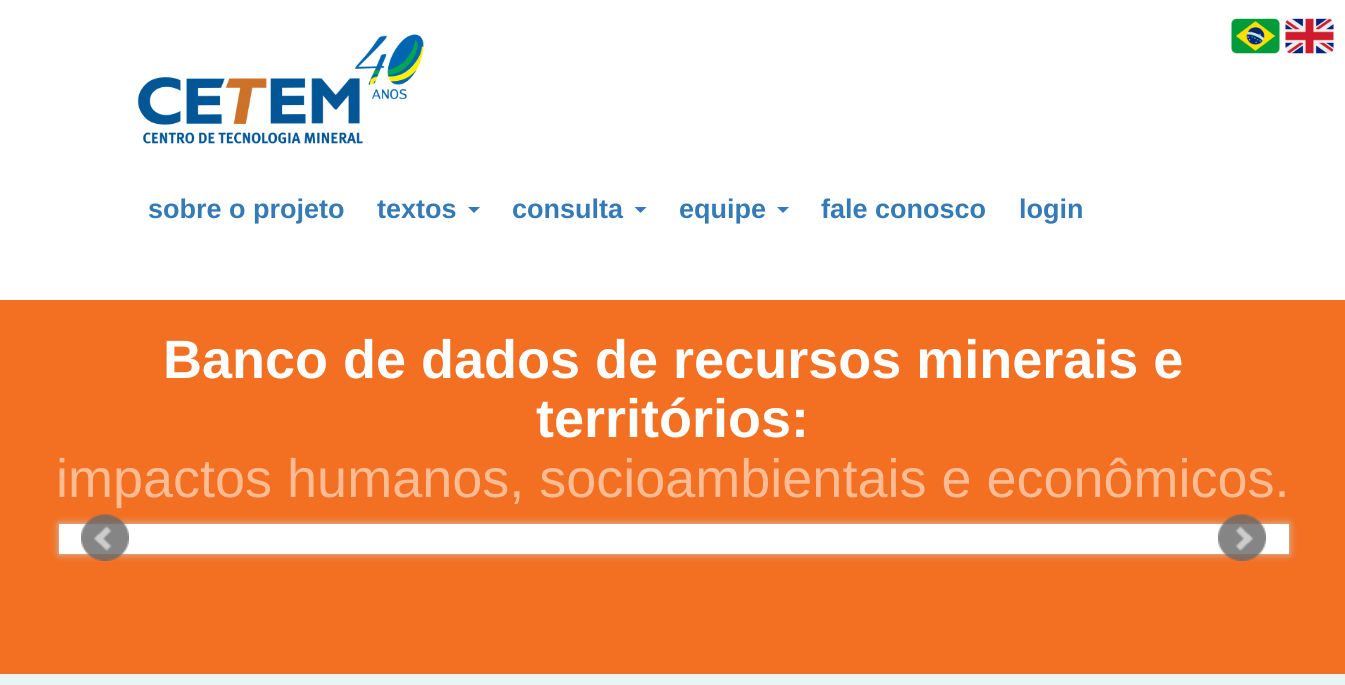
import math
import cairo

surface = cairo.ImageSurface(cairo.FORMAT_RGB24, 1345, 685)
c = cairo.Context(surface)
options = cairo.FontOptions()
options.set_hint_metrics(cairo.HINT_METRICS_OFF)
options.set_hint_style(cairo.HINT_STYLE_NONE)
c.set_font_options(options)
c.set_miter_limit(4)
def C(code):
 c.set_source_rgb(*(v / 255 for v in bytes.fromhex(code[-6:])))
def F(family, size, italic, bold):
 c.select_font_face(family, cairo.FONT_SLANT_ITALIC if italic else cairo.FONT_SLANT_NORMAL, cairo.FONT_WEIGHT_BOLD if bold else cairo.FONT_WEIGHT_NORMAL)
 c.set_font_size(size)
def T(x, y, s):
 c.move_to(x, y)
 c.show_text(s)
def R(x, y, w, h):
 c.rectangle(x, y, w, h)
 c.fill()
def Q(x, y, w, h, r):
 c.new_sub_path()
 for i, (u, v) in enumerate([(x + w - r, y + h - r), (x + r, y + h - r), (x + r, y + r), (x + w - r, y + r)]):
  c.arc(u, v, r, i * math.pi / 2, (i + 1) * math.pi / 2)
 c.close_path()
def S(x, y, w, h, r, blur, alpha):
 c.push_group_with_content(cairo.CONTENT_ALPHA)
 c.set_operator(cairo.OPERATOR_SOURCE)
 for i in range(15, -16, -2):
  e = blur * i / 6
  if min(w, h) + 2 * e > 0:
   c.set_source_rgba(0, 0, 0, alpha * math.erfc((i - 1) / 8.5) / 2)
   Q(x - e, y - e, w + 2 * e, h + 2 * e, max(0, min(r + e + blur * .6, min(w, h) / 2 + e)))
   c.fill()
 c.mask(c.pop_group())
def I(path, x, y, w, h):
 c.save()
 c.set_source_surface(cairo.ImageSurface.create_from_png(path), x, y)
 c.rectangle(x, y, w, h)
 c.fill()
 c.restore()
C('ffffff')
c.paint()
I('1.png',1231,18,49,36)
I('2.png',1285,18,49,36)
I('3.png',137,34,287,110)
F('Liberation Sans',27,0,1)
C('337ab7')
T(148,218,'sobre o projeto')
T(377,218,'textos')
c.new_path()
c.move_to(468,207)
c.line_to(480,207)
c.line_to(474,213)
c.close_path()
c.fill()
T(512,218,'consulta')
c.new_path()
c.move_to(634.5,207)
c.line_to(646.5,207)
c.line_to(640.5,213)
c.close_path()
c.fill()
T(679,218,'equipe')
c.new_path()
c.move_to(777,207)
c.line_to(789,207)
c.line_to(783,213)
c.close_path()
c.fill()
T(821,218,'fale conosco')
T(1019,218,'login')
C('eaf5f2')
R(0,674,1345,11)
C('f36f21')
R(0,300,1345,374)
F('Liberation Sans',54,0,1)
C('ffffff')
T(163,378,'Banco de dados de recursos minerais e')
T(536,437,'territórios:')
F('Liberation Sans',54,0,0)
C('febc94')
T(56,497,'impactos humanos, socioambientais e econômicos.')
C('cccccc')
S(59,524,1230,30,0,4,1)
C('ffffff')
R(59,524,1230,30)
I('4.png',81,514,48,47)
I('5.png',1218,514,48,47)
surface.write_to_png('o.png')
